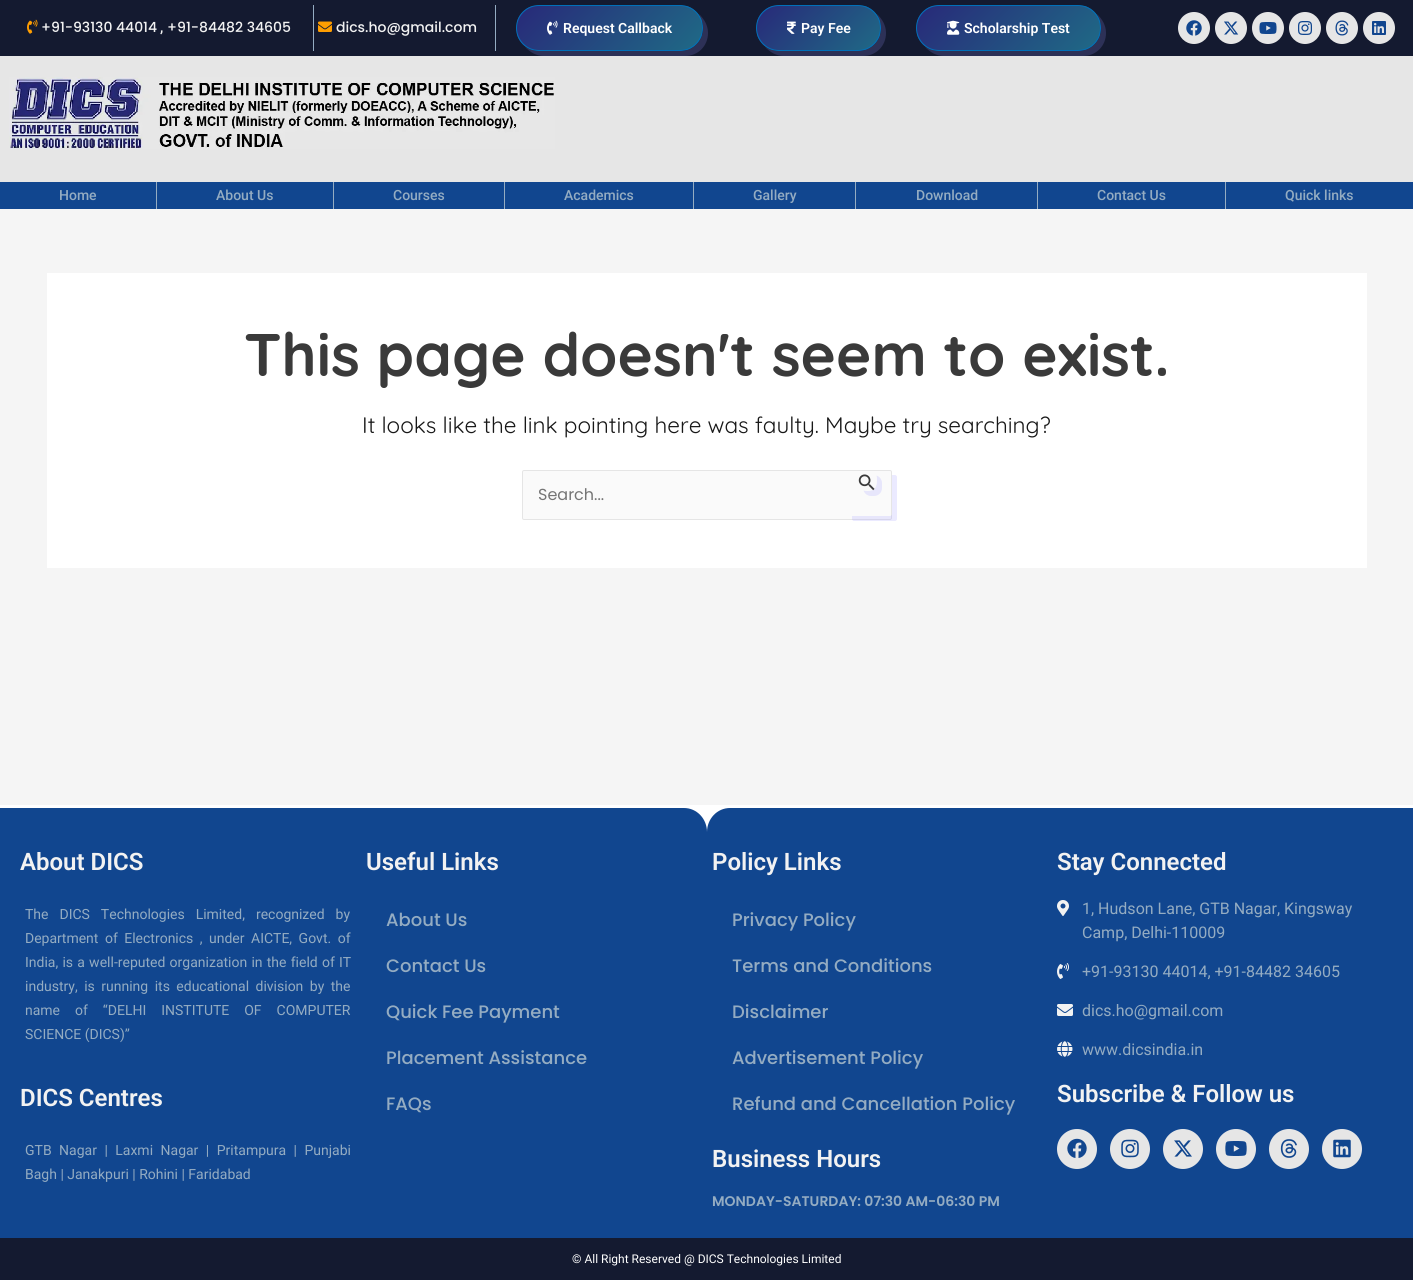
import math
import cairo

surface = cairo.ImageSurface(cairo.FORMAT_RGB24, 1413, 1280)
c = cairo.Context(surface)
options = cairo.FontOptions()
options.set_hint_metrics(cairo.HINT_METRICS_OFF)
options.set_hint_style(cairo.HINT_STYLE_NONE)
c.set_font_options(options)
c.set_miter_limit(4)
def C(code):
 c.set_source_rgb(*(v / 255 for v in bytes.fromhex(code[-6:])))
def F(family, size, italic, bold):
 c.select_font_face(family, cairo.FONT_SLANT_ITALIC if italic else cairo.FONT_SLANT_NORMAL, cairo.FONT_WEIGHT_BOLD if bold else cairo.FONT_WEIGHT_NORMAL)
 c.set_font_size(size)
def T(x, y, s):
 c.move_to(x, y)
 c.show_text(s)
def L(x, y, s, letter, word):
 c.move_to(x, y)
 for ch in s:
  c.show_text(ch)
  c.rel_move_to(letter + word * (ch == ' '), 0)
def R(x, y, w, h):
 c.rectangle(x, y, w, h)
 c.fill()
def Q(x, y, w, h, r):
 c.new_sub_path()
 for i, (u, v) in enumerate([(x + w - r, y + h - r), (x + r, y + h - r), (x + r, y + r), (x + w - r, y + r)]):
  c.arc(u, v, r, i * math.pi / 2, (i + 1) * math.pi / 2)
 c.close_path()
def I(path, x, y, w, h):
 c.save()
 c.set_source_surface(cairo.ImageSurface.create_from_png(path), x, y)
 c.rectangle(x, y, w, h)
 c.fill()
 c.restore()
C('f5f5f5')
c.paint()
C('141a30')
R(0,0,1413,56)
C('94acc2')
R(313,5,1,46)
I('1.png',27,19,11,15)
F('Poppins Medium',14,0,0)
C('f2f2f2')
T(41,32,'+91-93130 44014')
F('Roboto SemiBold',14,0,0)
T(160,32,',')
F('Poppins Medium',14,0,0)
T(167,32,'+91-84482 34605')
C('94acc2')
R(495,5,1,46)
I('2.png',318,21,14,11)
C('f2f2f2')
T(336,32,'dics.ho@gmail.com')
C('2d3157')
c.new_path()
c.move_to(525,47)
c.curve_to(530,52,536,56,544,56)
c.line_to(685,56)
c.curve_to(698,56,708,46,708,33)
c.curve_to(708,25,704,19,699,14)
c.curve_to(701,18,703,23,703,28)
c.curve_to(703,41,693,51,680,51)
c.line_to(539,51)
c.curve_to(534,51,529,49,525,47)
c.close_path()
c.fill()
c.save()
Q(516,5,187,46,23)
c.clip()
gradient = cairo.LinearGradient(552,-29,667,85)
gradient.add_color_stop_rgba(0,0.157,0.161,0.475,1)
gradient.add_color_stop_rgba(1,0.122,0.416,0.525,1)
c.set_source(gradient)
R(517,6,185,44)
c.restore()
Q(516.5,5.5,186,45,22.5)
C('0170b9')
c.set_line_width(1)
c.stroke()
I('3.png',547,20,11,15)
F('Roboto SemiBold',14,0,0)
C('ffffff')
T(563,33,'Request Callback')
C('2d3157')
c.new_path()
c.move_to(765,47)
c.curve_to(770,52,776,56,784,56)
c.line_to(863,56)
c.curve_to(876,56,886,46,886,33)
c.curve_to(886,25,882,19,877,14)
c.curve_to(879,18,881,23,881,28)
c.curve_to(881,41,871,51,858,51)
c.line_to(779,51)
c.curve_to(774,51,769,49,765,47)
c.close_path()
c.fill()
c.save()
Q(756,5,125,46,23)
c.clip()
gradient = cairo.LinearGradient(777,-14,860,70)
gradient.add_color_stop_rgba(0,0.157,0.161,0.475,1)
gradient.add_color_stop_rgba(1,0.122,0.416,0.525,1)
c.set_source(gradient)
R(757,6,123,44)
c.restore()
Q(756.5,5.5,124,45,22.5)
C('0170b9')
c.stroke()
I('4.png',787,21,9,13)
C('ffffff')
T(801,33,'Pay Fee')
C('2d3157')
c.new_path()
c.move_to(925,47)
c.curve_to(930,52,936,56,944,56)
c.line_to(1083,56)
c.curve_to(1096,56,1106,46,1106,33)
c.curve_to(1106,25,1102,19,1097,14)
c.curve_to(1099,18,1101,23,1101,28)
c.curve_to(1101,41,1091,51,1078,51)
c.line_to(939,51)
c.curve_to(934,51,929,49,925,47)
c.close_path()
c.fill()
c.save()
Q(916,5,185,46,23)
c.clip()
gradient = cairo.LinearGradient(952,-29,1065,85)
gradient.add_color_stop_rgba(0,0.157,0.161,0.475,1)
gradient.add_color_stop_rgba(1,0.122,0.416,0.525,1)
c.set_source(gradient)
R(917,6,183,44)
c.restore()
Q(916.5,5.5,184,45,22.5)
C('0170b9')
c.stroke()
I('5.png',947,20,13,15)
C('ffffff')
T(964,33,'Scholarship Test')
C('e6e6e6')
c.new_path()
c.arc(1194,28,16,0,2 * math.pi)
c.fill()
I('6.png',1186,20,16,16)
c.arc(1231,28,16,0,2 * math.pi)
c.fill()
I('7.png',1224,21,15,14)
c.arc(1268,28,16,0,2 * math.pi)
c.fill()
I('8.png',1259,22,18,12)
c.arc(1305,28,16,0,2 * math.pi)
c.fill()
I('9.png',1298,21,14,14)
c.arc(1342,28,16,0,2 * math.pi)
c.fill()
I('10.png',1335,20,14,16)
c.arc(1379,28,16,0,2 * math.pi)
c.fill()
I('11.png',1372,21,14,14)
R(0,56,1413,126)
I('12.png',9,77,546,72)
C('11468f')
R(0,182,1413,27)
F('Roboto Medium',14,0,0)
C('94acc2')
T(59,200,'Home')
R(156,182,1,27)
T(216,200,'About Us')
R(333,182,1,27)
T(393,200,'Courses')
R(504,182,1,27)
T(564,200,'Academics')
R(693,182,1,27)
T(753,200,'Gallery')
R(855,182,1,27)
T(916,200,'Download')
R(1037,182,1,27)
T(1097,200,'Contact Us')
R(1225,182,1,27)
T(1285,200,'Quick links')
C('ffffff')
R(47,273,1320,295)
F('Quicksand',60,0,1)
C('3a3a3a')
T(244,376,'This page doesn\'t seem to exist.')
F('Quicksand',22.5,0,0)
C('181818')
T(362,433,'It looks like the link pointing here was faulty. Maybe try searching?')
C('fafafa')
Q(522.5,470.5,369,49,1.5)
c.fill_preserve()
C('e5e5e5')
c.stroke()
F('Poppins',16,0,0)
C('757575')
T(538,500,'Search...')
C('e7e6fb')
c.new_path()
c.move_to(863.5,490.5)
c.curve_to(864.5,493.5,867.5,496,871,496)
c.line_to(874,496)
c.curve_to(878.5,496,882,492.5,882,488)
c.line_to(882,483)
c.curve_to(882,479.5,879.5,476.5,876.5,475.5)
c.curve_to(877,477,877,479,877,480.5)
c.curve_to(877,487,875,491,868,491)
c.curve_to(866.5,491,865,491,863.5,490.5)
c.close_path()
c.fill()
I('13.png',858,474,17,17)
c.set_source_rgba(0.588,0.573,1,0.19)
c.new_path()
c.move_to(852,516)
c.line_to(852,519)
c.curve_to(852,520,853,521,854,521)
c.line_to(895,521)
c.curve_to(896,521,897,520,897,519)
c.line_to(897,477)
c.curve_to(897,476,896,475,895,475)
c.line_to(892,475)
c.line_to(892,514)
c.curve_to(892,515,891,516,890,516)
c.close_path()
c.fill()
C('11468f')
R(0,808,1413,430)
c.save()
c.rectangle(0,805,1413,27)
c.clip()
C('ffffff')
c.new_path()
c.move_to(0,804)
c.line_to(0,808)
c.line_to(684,808)
c.curve_to(697,808,707,819,707,832)
c.curve_to(707,819,717,808,730,808)
c.line_to(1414,808)
c.line_to(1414,804)
c.close_path()
c.fill()
c.restore()
F('Roboto SemiBold',24,0,0)
C('f2f2f2')
T(20,870,'About DICS')
F('Roboto',14,0,0)
C('94acc2')
L(25,919,'The DICS Technologies Limited, recognized by',0,7.5)
L(25,943,'Department of Electronics , under AICTE, Govt. of',0,3)
L(25,967,'India, is a well-reputed organization in the field of IT',0,.75)
L(25,991,'industry, is running its educational division by the',0,3)
L(25,1015,'name of “DELHI INSTITUTE OF COMPUTER',0,11.5)
T(25,1039,'SCIENCE (DICS)”')
F('Roboto SemiBold',24,0,0)
C('f2f2f2')
T(20,1106,'DICS Centres')
F('Roboto',14,0,0)
C('94acc2')
L(25,1155,'GTB Nagar | Laxmi Nagar | Pritampura | Punjabi',0,4)
T(25,1179,'Bagh | Janakpuri | Rohini | Faridabad')
F('Roboto SemiBold',24,0,0)
C('f2f2f2')
T(366,870,'Useful Links')
F('Poppins Medium',18,0,0)
C('94acc2')
T(386,926,'About Us')
T(386,972,'Contact Us')
T(386,1018,'Quick Fee Payment')
T(386,1064,'Placement Assistance')
T(386,1110,'FAQs')
F('Roboto SemiBold',24,0,0)
C('f2f2f2')
T(712,870,'Policy Links')
F('Poppins Medium',18,0,0)
C('94acc2')
T(732,926,'Privacy Policy')
T(732,972,'Terms and Conditions')
T(732,1018,'Disclaimer')
T(732,1064,'Advertisement Policy')
T(732,1110,'Refund and Cancellation Policy')
F('Roboto SemiBold',24,0,0)
C('f2f2f2')
T(712,1167,'Business Hours')
F('Poppins SemiBold',14,0,0)
C('94acc2')
T(712,1206,'MONDAY-SATURDAY: 07:30 AM-06:30 PM')
F('Roboto SemiBold',24,0,0)
C('f2f2f2')
T(1057,870,'Stay Connected')
I('14.png',1057,900,12,16)
F('Roboto',16,0,0)
C('94acc2')
T(1082,914,'1, Hudson Lane, GTB Nagar, Kingsway')
T(1082,938,'Camp, Delhi-110009')
I('15.png',1057,963,12,16)
T(1082,977,'+91-93130 44014, +91-84482 34605')
I('16.png',1057,1004,16,12)
T(1082,1016,'dics.ho@gmail.com')
I('17.png',1057,1041,16,16)
T(1082,1055,'www.dicsindia.in')
F('Roboto SemiBold',24,0,0)
C('f2f2f2')
T(1057,1102,'Subscribe & Follow us')
C('e6e6e6')
c.new_path()
c.arc(1077,1149,20,0,2 * math.pi)
c.fill()
I('18.png',1067,1138,20,20)
c.arc(1130,1149,20,0,2 * math.pi)
c.fill()
I('19.png',1121,1139,18,19)
c.arc(1183,1149,20,0,2 * math.pi)
c.fill()
I('20.png',1174,1140,18,17)
c.arc(1236,1149,20,0,2 * math.pi)
c.fill()
I('21.png',1225,1141,22,15)
c.arc(1289,1149,20,0,2 * math.pi)
c.fill()
I('22.png',1280,1139,17,19)
c.arc(1342,1149,20,0,2 * math.pi)
c.fill()
I('23.png',1333,1139,18,19)
C('141a30')
R(0,1238,1413,42)
F('Roboto',12,0,0)
C('ffffff')
T(572,1263,'© All Right Reserved @ DICS Technologies Limited')
surface.write_to_png('o.png')
